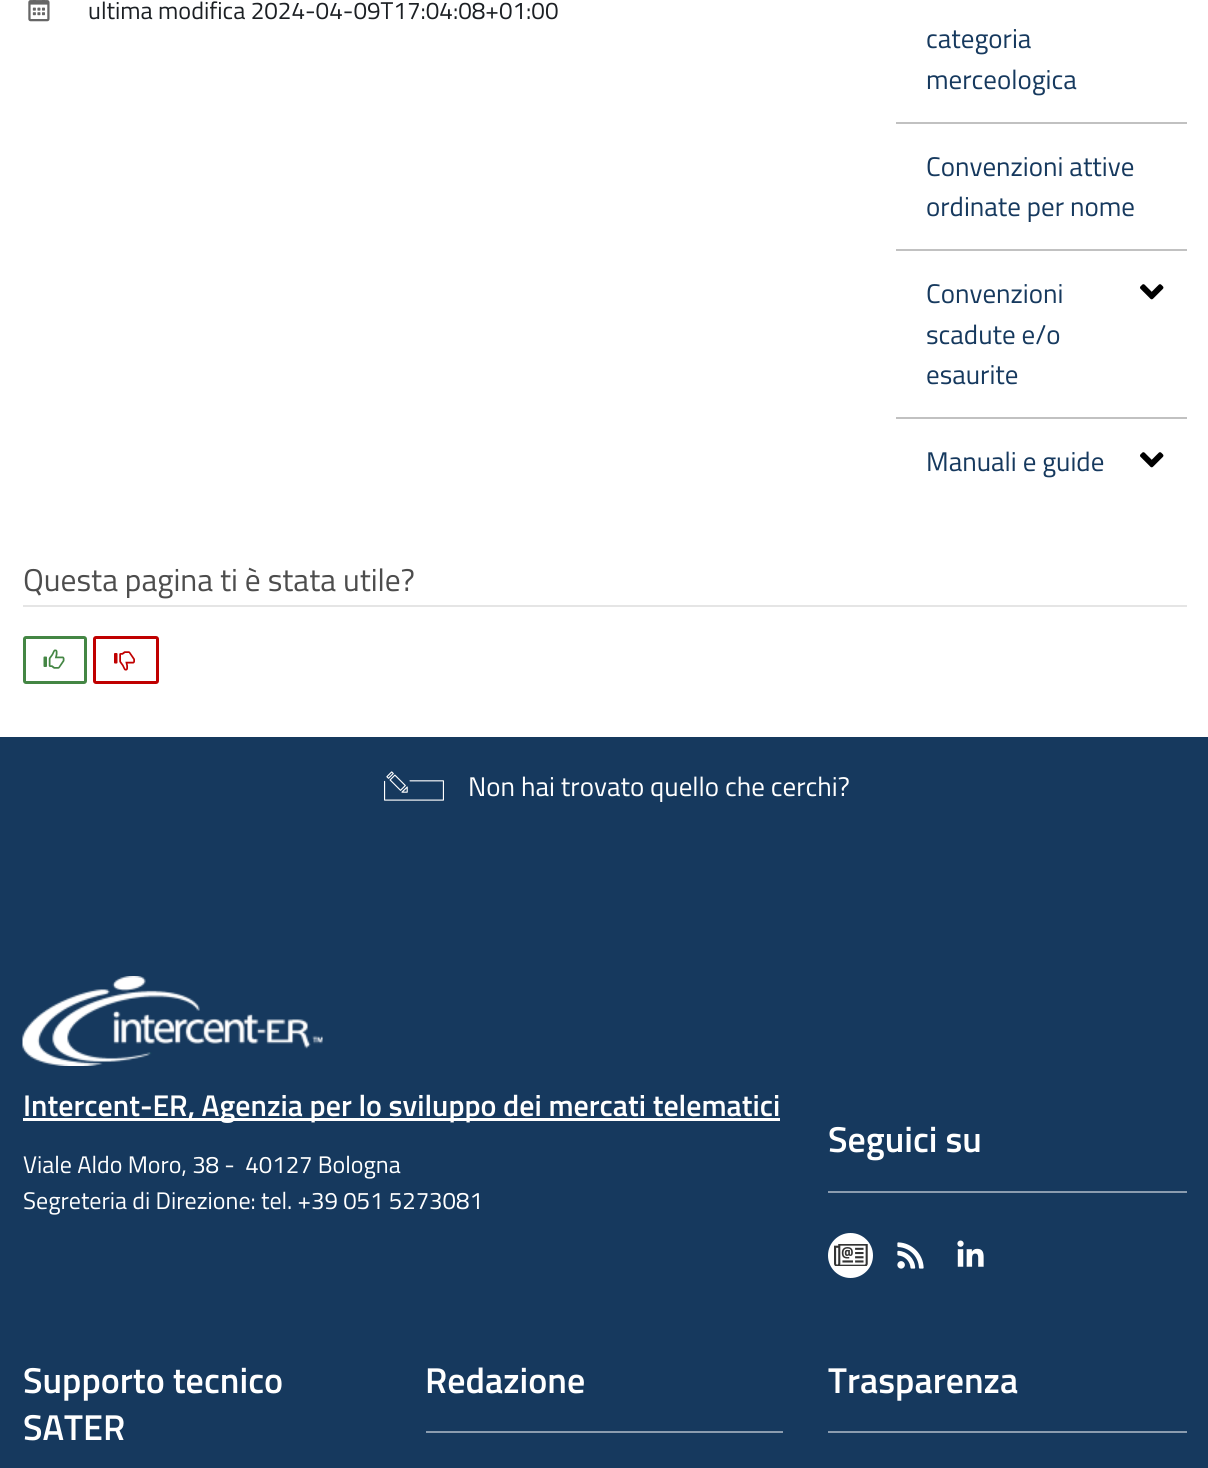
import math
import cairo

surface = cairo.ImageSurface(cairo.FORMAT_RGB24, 1208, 1468)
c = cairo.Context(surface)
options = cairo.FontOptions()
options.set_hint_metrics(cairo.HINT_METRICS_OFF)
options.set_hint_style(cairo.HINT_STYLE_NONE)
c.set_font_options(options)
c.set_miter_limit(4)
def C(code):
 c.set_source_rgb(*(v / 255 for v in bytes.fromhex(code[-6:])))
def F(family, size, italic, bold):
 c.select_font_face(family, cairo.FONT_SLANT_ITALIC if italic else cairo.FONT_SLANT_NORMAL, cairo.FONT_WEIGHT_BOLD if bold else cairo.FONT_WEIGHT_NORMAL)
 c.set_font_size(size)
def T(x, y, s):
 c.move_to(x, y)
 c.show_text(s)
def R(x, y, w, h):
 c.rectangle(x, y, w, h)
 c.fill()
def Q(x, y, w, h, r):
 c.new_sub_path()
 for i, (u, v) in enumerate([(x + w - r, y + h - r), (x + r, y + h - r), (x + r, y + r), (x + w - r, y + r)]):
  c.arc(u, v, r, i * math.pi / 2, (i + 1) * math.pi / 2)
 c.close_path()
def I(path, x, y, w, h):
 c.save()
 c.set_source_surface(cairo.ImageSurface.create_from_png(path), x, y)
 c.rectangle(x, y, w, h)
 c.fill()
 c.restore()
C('ffffff')
c.paint()
I('1.png',28,0,22,22)
F('Titillium Web',24.25,0,0)
C('1c2024')
T(88,19,'ultima modifica 2024-04-09T17:04:08+01:00')
C('c1c1c1')
R(896,122,291,2)
F('Titillium Web',27,0,0)
C('16395e')
T(926,48,'categoria')
T(926,89,'merceologica')
C('c1c1c1')
R(896,249,291,2)
C('16395e')
T(926,176,'Convenzioni attive')
T(926,216,'ordinate per nome')
C('c1c1c1')
R(896,417,291,2)
C('16395e')
T(926,303,'Convenzioni')
I('2.png',1140,284,24,16)
T(926,344,'scadute e/o')
T(926,384,'esaurite')
T(926,471,'Manuali e guide')
I('2.png',1140,452,24,16)
C('e5e5e5')
R(23,605,1164,2)
F('Titillium Web',31.5,0,0)
C('4d4d4d')
T(23,591,'Questa pagina ti è stata utile?')
Q(24.5,637.5,61,45,1.5)
C('448644')
c.set_line_width(3)
c.stroke()
I('3.png',43,649,22,20)
Q(94.5,637.5,63,45,1.5)
C('c00000')
c.stroke()
I('4.png',114,651,21,20)
C('16395e')
R(0,737,1208,731)
I('5.png',384,771,60,30)
F('Titillium Web',27,0,0)
C('ffffff')
T(468,796,'Non hai trovato quello che cerchi?')
I('6.png',22,976,301,90)
R(23,1118,757,3)
F('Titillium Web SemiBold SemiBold',30,0,0)
T(23,1116,'Intercent-ER, Agenzia per lo sviluppo dei mercati telematici')
F('Titillium Web',24,0,0)
T(23,1173,'Viale Aldo Moro, 38 -  40127 Bologna')
T(23,1209,'Segreteria di Direzione: tel. +39 051 5273081')
F('Titillium Web SemiBold SemiBold',36,0,0)
T(828,1152,'Seguici su')
C('8b9caf')
R(828,1191,359,2)
C('ffffff')
c.new_path()
c.arc(850.5,1255.5,22.5,0,2 * math.pi)
c.fill()
I('7.png',834,1244,34,22)
I('8.png',897,1242,27,27)
I('9.png',957,1240,27,27)
T(23,1393,'Supporto tecnico')
T(23,1440,'SATER')
T(425,1393,'Redazione')
C('8b9caf')
R(426,1431,357,2)
C('ffffff')
T(828,1393,'Trasparenza')
C('8b9caf')
R(828,1431,359,2)
surface.write_to_png('o.png')
